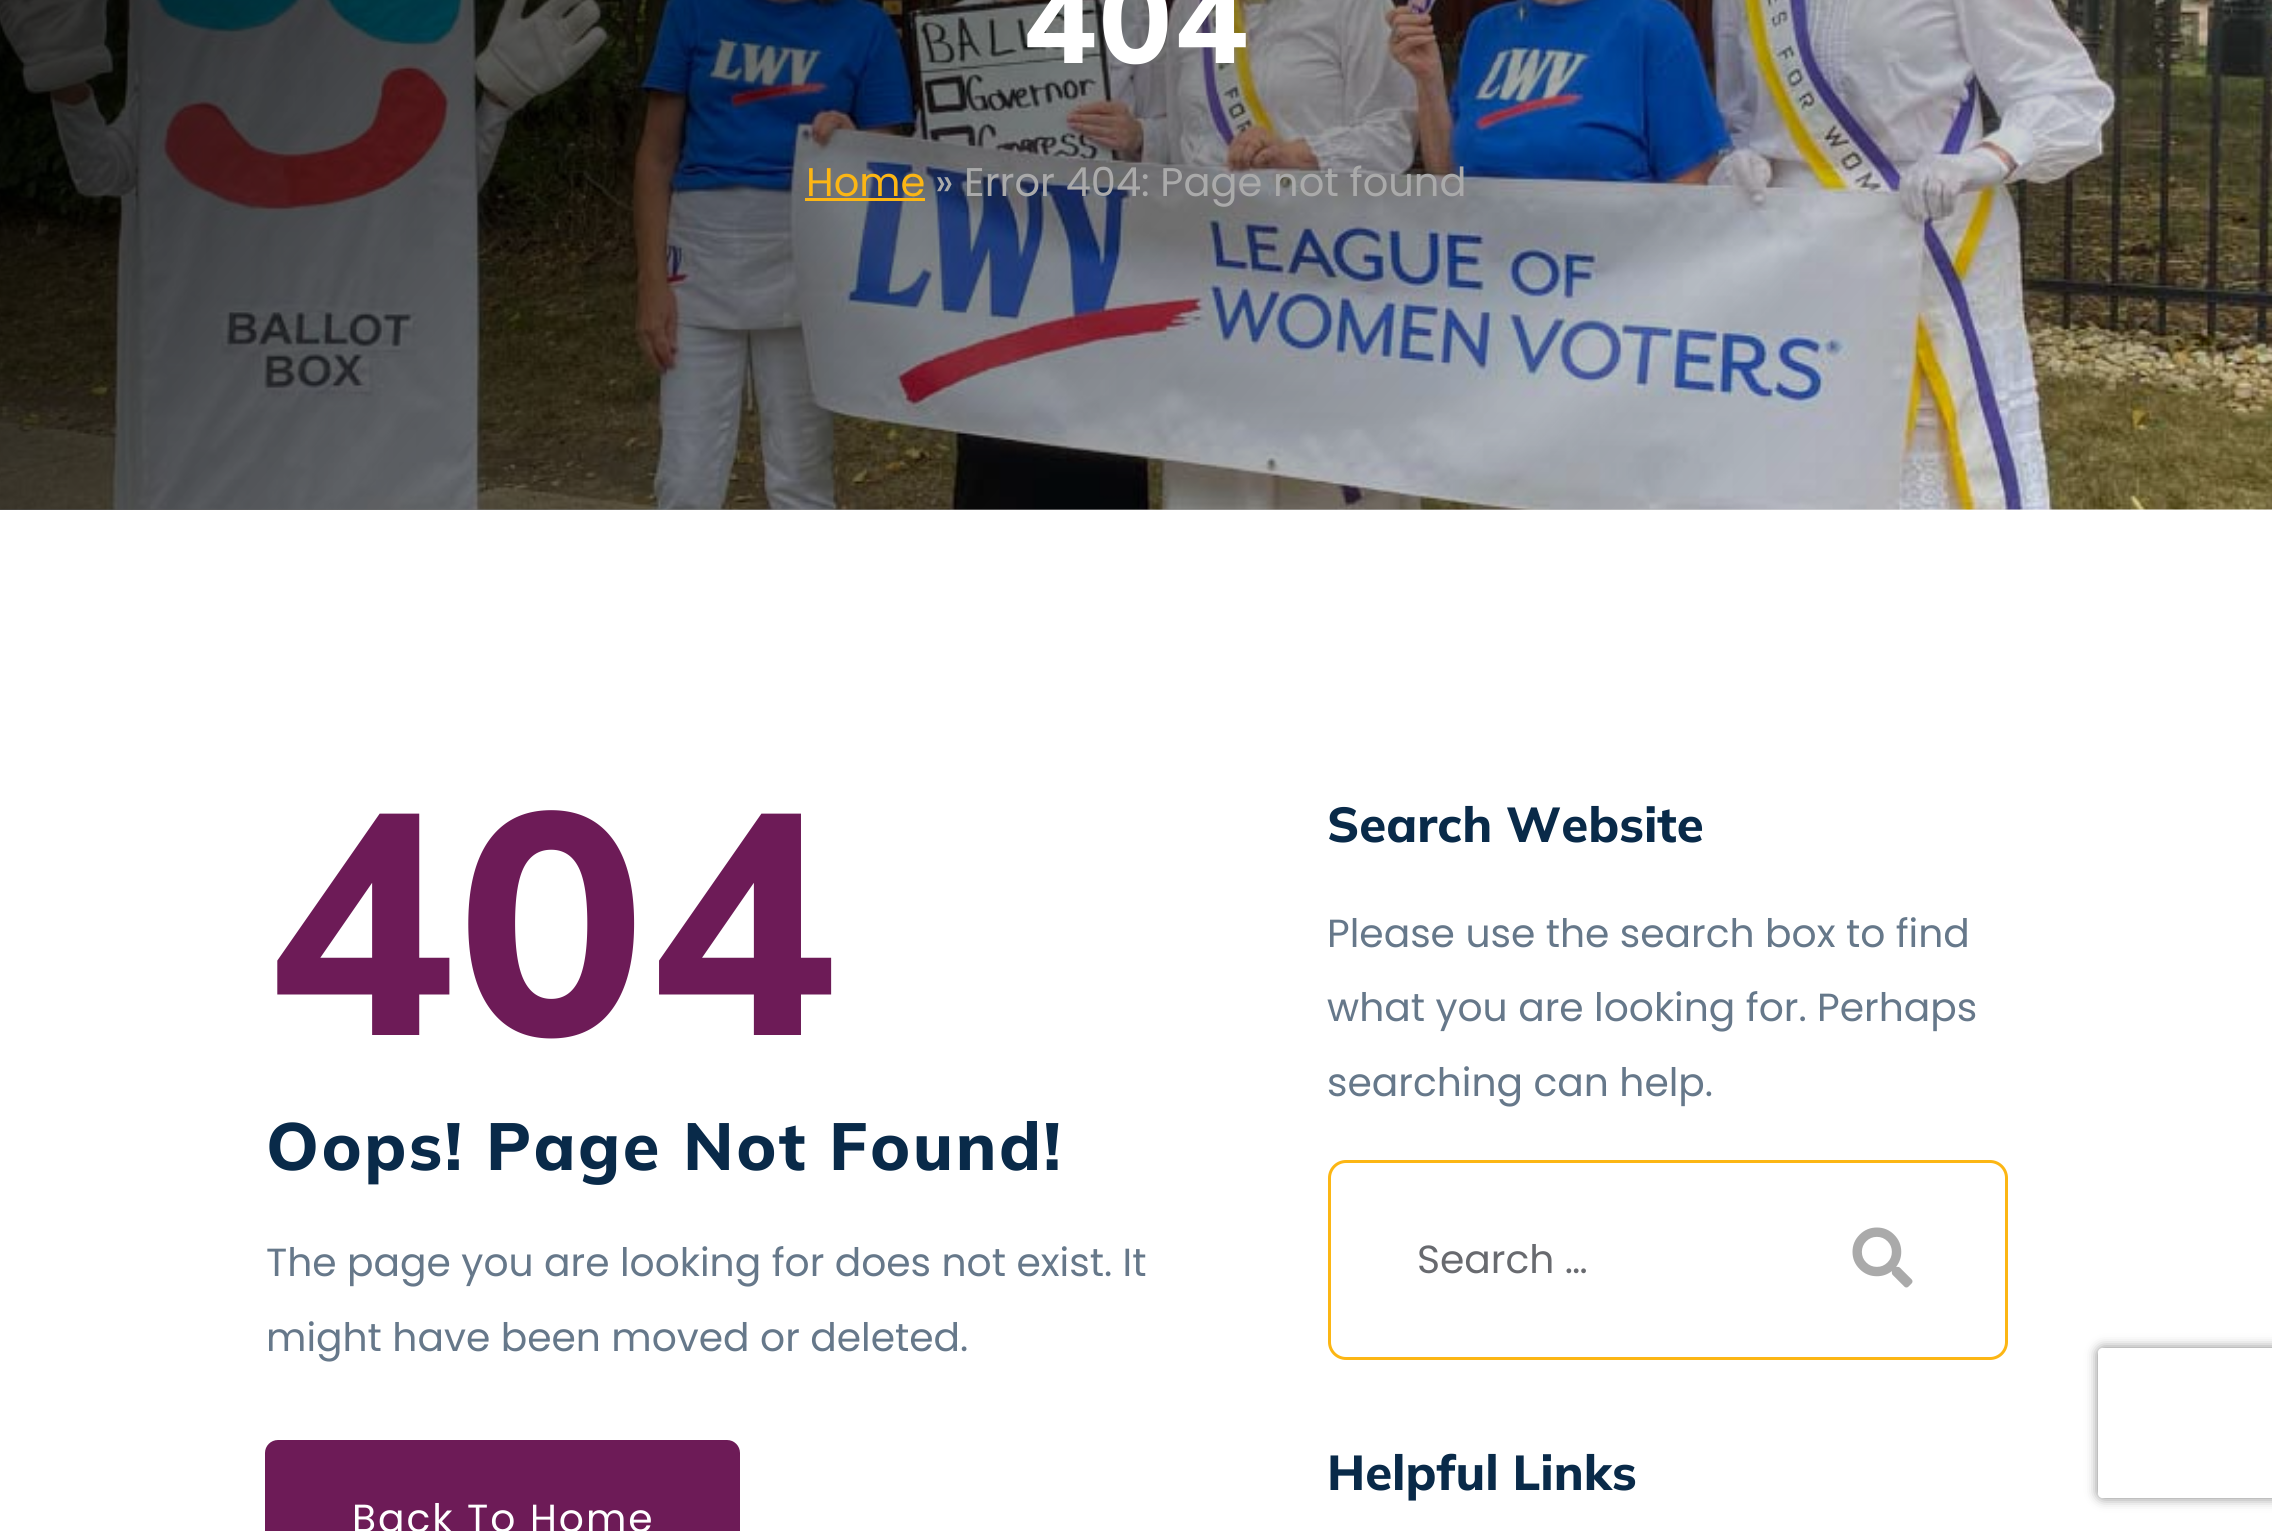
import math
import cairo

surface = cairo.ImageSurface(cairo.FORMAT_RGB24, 2272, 1531)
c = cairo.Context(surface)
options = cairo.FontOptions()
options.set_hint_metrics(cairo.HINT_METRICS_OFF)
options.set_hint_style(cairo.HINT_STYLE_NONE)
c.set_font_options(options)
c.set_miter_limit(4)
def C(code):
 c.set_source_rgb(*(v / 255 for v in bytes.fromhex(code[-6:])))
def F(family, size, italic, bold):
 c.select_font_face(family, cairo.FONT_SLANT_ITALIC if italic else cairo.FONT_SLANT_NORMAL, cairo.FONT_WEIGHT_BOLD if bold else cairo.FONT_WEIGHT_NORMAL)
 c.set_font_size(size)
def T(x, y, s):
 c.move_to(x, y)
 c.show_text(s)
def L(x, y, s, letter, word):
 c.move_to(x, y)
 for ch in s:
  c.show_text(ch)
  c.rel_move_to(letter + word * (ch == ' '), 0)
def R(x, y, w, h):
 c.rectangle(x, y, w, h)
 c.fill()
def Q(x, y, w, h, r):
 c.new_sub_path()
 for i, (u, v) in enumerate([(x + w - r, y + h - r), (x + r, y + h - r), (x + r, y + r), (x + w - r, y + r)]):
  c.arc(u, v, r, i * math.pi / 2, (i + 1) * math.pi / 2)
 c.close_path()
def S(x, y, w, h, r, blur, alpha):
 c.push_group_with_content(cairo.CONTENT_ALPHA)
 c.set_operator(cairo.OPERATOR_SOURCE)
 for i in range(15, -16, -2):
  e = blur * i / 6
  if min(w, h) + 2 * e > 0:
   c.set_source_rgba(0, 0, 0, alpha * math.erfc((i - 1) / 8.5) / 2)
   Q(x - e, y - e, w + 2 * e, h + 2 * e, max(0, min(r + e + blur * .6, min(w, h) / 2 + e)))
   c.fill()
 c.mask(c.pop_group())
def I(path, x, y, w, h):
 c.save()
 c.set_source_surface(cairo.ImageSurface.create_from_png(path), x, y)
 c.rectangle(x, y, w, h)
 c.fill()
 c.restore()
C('ffffff')
c.paint()
I('1.png',0,0,2272,510)
gradient = cairo.LinearGradient(2012,821,261,-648)
gradient.add_color_stop_rgba(0,0,0,0,0)
gradient.add_color_stop_rgba(1,0,0,0,.91)
c.set_source(gradient)
R(0,0,2272,510)
F('Mulish ExtraBold',122,0,0)
C('ffffff')
L(1023,63,'404',2.5,0)
F('Poppins',40,0,0)
C('fcb614')
T(806,196,'Home')
R(805,198,120,3)
C('aaaaaa')
T(935,196,'» Error 404: Page not found')
F('Mulish ExtraBold',314,0,0)
C('6d1b57')
L(266,1035,'404',2.5,0)
F('Mulish ExtraBold',66.6,0,0)
C('092a49')
L(266,1170,'Oops! Page Not Found!',2.5,0)
F('Poppins',39.2,0,0)
C('66788a')
T(266,1276,'The page you are looking for does not exist. It')
T(266,1351,'might have been moved or deleted.')
C('6d1b57')
Q(265,1440,475,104,13)
c.fill()
C('ffffff')
L(352,1532,'Back To Home',2,0)
F('Mulish ExtraBold',49,0,0)
C('092a49')
T(1327,842,'Search Website')
F('Poppins',39.2,0,0)
C('66788a')
T(1327,947,'Please use the search box to find')
T(1327,1021,'what you are looking for. Perhaps')
T(1327,1096,'searching can help.')
Q(1329.5,1161.5,677,197,16.5)
C('fcb614')
c.set_line_width(3)
c.stroke()
C('686a6f')
T(1417,1273,'Search …')
I('2.png',1852,1227,61,61)
F('Mulish ExtraBold',49,0,0)
C('092a49')
T(1327,1490,'Helpful Links')
c.save()
c.set_fill_rule(cairo.FILL_RULE_EVEN_ODD)
c.new_path()
c.move_to(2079,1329)
c.line_to(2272,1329)
c.line_to(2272,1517)
c.line_to(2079,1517)
c.close_path()
c.move_to(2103,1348)
c.line_to(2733,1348)
c.curve_to(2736,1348,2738,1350,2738,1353)
c.line_to(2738,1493)
c.curve_to(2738,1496,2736,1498,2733,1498)
c.line_to(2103,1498)
c.curve_to(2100,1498,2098,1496,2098,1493)
c.line_to(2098,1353)
c.curve_to(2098,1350,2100,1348,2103,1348)
c.close_path()
c.clip()
C('808080')
S(2098,1348,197,150,5,6,1)
c.restore()
surface.write_to_png('o.png')
